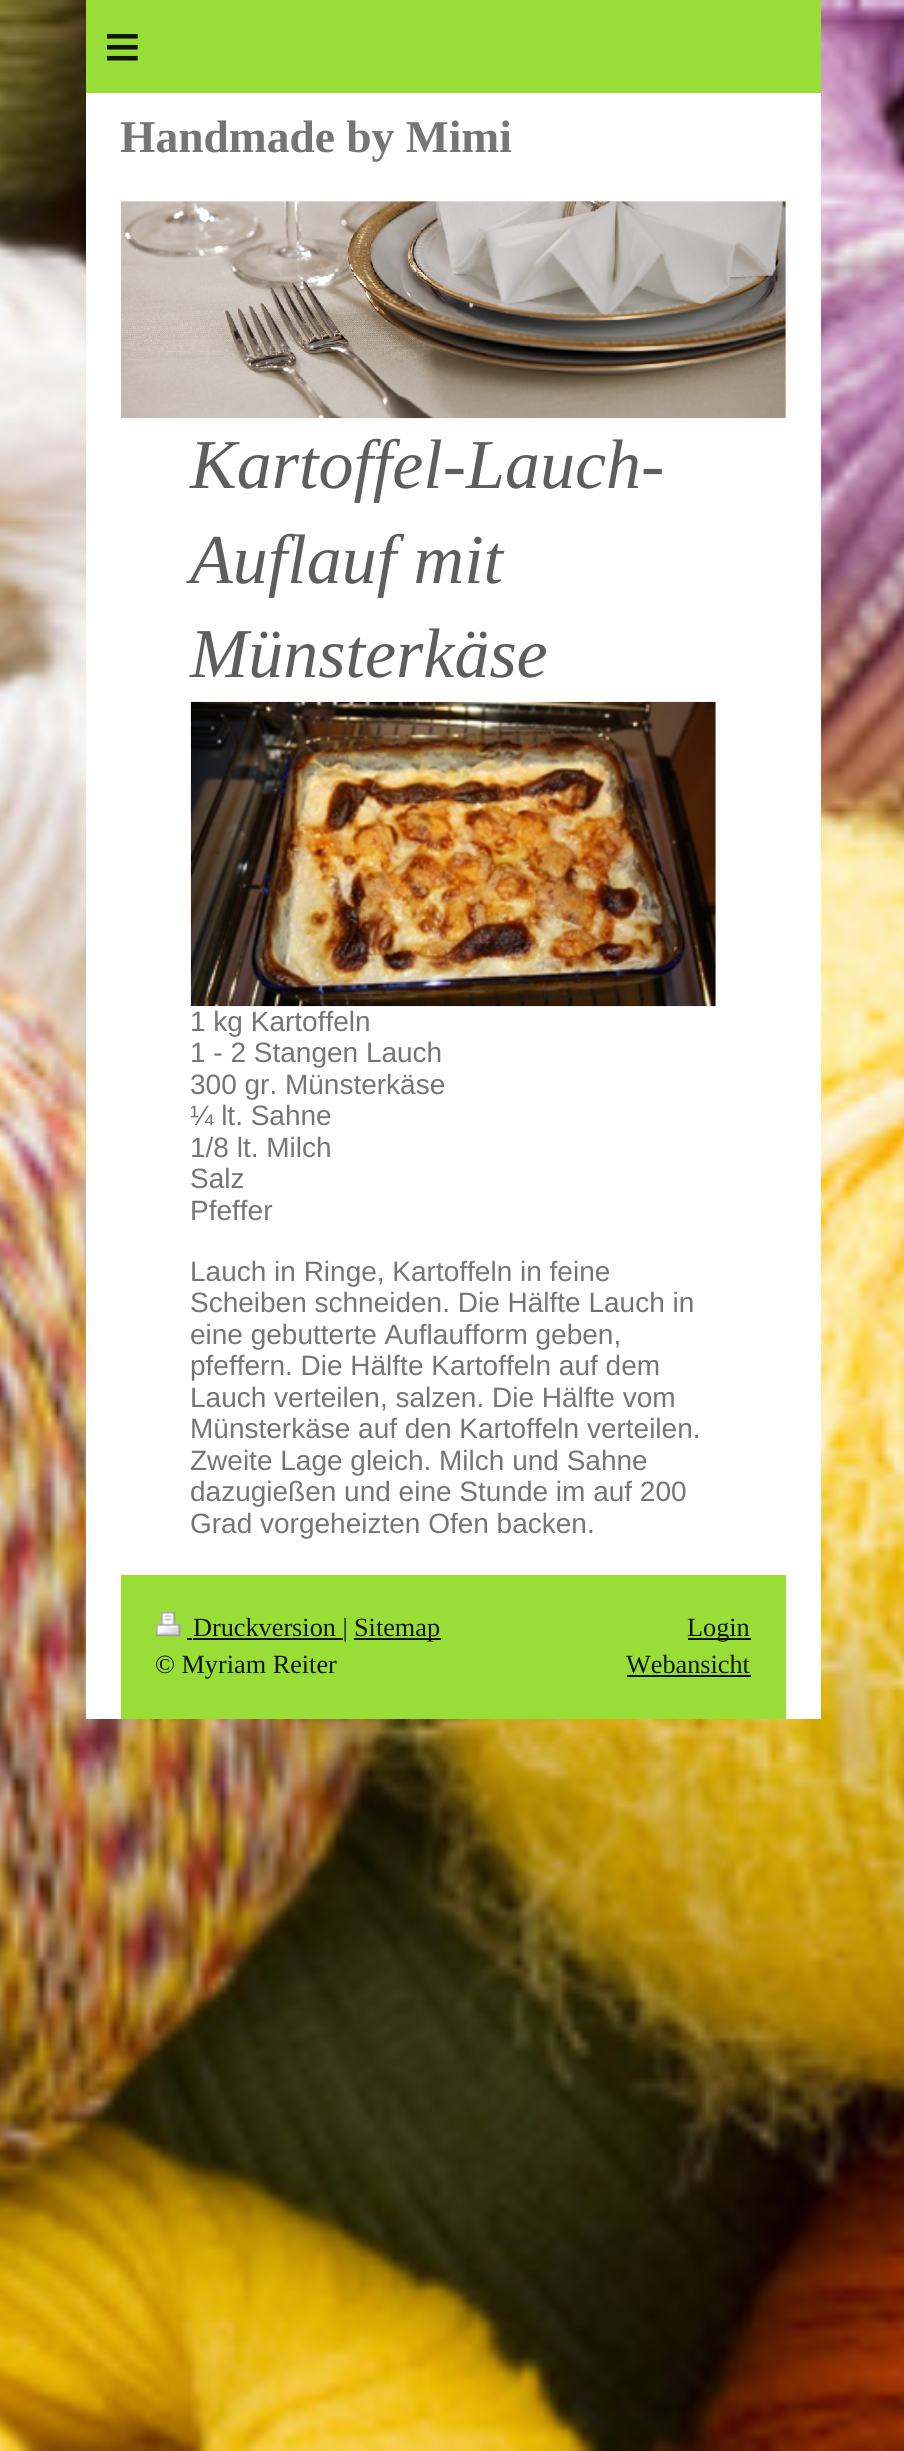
import math
import cairo

surface = cairo.ImageSurface(cairo.FORMAT_RGB24, 904, 2451)
c = cairo.Context(surface)
options = cairo.FontOptions()
options.set_hint_metrics(cairo.HINT_METRICS_OFF)
options.set_hint_style(cairo.HINT_STYLE_NONE)
c.set_font_options(options)
c.set_miter_limit(4)
def C(code):
 c.set_source_rgb(*(v / 255 for v in bytes.fromhex(code[-6:])))
def F(family, size, italic, bold):
 c.select_font_face(family, cairo.FONT_SLANT_ITALIC if italic else cairo.FONT_SLANT_NORMAL, cairo.FONT_WEIGHT_BOLD if bold else cairo.FONT_WEIGHT_NORMAL)
 c.set_font_size(size)
def T(x, y, s):
 c.move_to(x, y)
 c.show_text(s)
def L(x, y, s, letter, word):
 c.move_to(x, y)
 for ch in s:
  c.show_text(ch)
  c.rel_move_to(letter + word * (ch == ' '), 0)
def R(x, y, w, h):
 c.rectangle(x, y, w, h)
 c.fill()
def I(path, x, y, w, h):
 c.save()
 c.set_source_surface(cairo.ImageSurface.create_from_png(path), x, y)
 c.rectangle(x, y, w, h)
 c.fill()
 c.restore()
C('ffffff')
c.paint()
I('1.png',0,0,904,2451)
C('99de37')
R(86,0,735,93)
F('Liberation Sans',63,0,0)
C('0f1606')
L(104,68,'≡',18,0)
C('ffffff')
R(86,93,735,1626)
F('Liberation Serif',45.5,0,1)
C('757575')
T(120,152,'Handmade by Mimi')
C('eeeeee')
R(121,201,665,217)
I('2.png',120,201,666,218)
F('Liberation Serif',70,1,0)
C('5e5e5e')
T(190,488,'Kartoffel-Lauch-')
T(190,583,'Auflauf mit')
T(190,677,'Münsterkäse')
I('3.png',190,701,526,306)
F('Liberation Sans',28,0,0)
C('757575')
T(190,1031,'1 kg Kartoffeln')
T(190,1062,'1 - 2 Stangen Lauch')
T(190,1094,'300 gr. Münsterkäse')
T(190,1125,'¼ lt. Sahne')
T(190,1157,'1/8 lt. Milch')
T(190,1188,'Salz')
T(190,1220,'Pfeffer')
T(190,1281,'Lauch in Ringe, Kartoffeln in feine')
T(190,1312,'Scheiben schneiden. Die Hälfte Lauch in')
T(190,1344,'eine gebutterte Auflaufform geben,')
T(190,1375,'pfeffern. Die Hälfte Kartoffeln auf dem')
T(190,1407,'Lauch verteilen, salzen. Die Hälfte vom')
T(190,1438,'Münsterkäse auf den Kartoffeln verteilen.')
T(190,1470,'Zweite Lage gleich. Milch und Sahne')
T(190,1501,'dazugießen und eine Stunde im auf 200')
T(190,1533,'Grad vorgeheizten Ofen backen.')
C('99de37')
R(121,1575,665,144)
I('4.png',155,1611,26,26)
C('0f1606')
R(193,1638,150,2)
F('Liberation Serif',26.25,0,0)
T(193,1636,'Druckversion |')
R(187,1638,5,2)
R(354,1638,87,2)
T(354,1636,'Sitemap')
T(155,1673,'© Myriam Reiter')
R(688,1638,63,2)
T(687,1636,'Login')
T(626,1673,'Webansicht')
R(627,1675,124,2)
surface.write_to_png('o.png')
